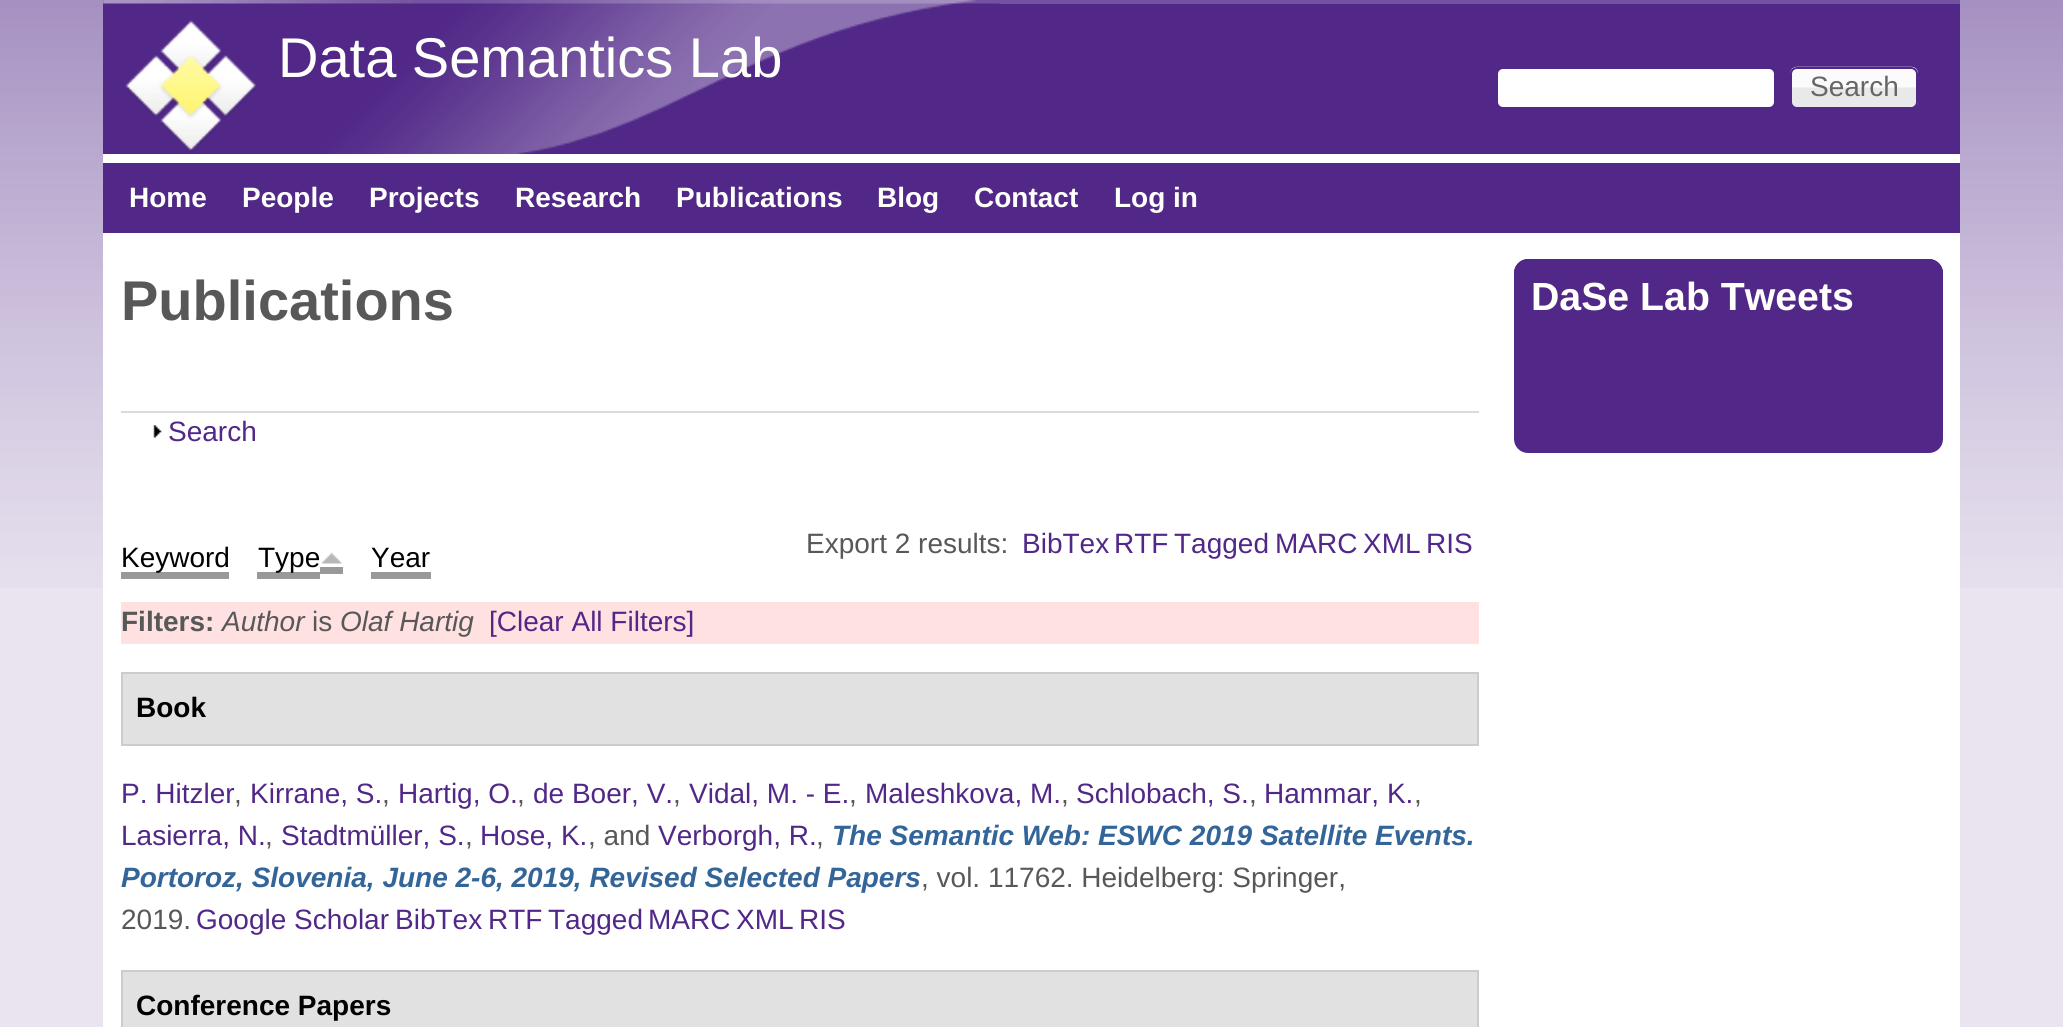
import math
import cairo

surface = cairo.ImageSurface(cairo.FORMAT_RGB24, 2063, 1027)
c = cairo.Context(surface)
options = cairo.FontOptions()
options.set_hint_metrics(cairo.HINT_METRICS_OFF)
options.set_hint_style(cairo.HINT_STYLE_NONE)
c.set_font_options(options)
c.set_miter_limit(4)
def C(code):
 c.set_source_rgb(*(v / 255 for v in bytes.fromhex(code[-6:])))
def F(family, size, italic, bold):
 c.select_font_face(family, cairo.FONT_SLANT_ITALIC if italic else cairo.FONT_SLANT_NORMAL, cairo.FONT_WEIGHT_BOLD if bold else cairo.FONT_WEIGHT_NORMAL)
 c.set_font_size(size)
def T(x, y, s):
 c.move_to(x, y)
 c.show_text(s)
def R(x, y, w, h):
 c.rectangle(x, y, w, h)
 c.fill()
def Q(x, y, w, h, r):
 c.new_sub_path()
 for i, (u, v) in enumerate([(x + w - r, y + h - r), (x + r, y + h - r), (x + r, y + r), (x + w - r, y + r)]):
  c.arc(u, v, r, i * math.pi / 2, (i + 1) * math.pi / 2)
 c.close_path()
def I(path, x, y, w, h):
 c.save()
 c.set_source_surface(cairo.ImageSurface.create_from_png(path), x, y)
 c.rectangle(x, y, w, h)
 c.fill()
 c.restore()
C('eae4f1')
c.paint()
I('1.png',0,0,2063,588)
C('ffffff')
R(103,154,1857,873)
C('512888')
R(103,4,1857,150)
C('73529f')
R(103,0,1857,4)
I('2.png',103,0,897,154)
I('3.png',125,20,131,132)
F('Liberation Sans',56,0,0)
C('fffffc')
T(278,77,'Data Semantics Lab')
C('ffffff')
Q(1497,68,278,40,6)
c.fill_preserve()
C('512888')
c.stroke()
I('4.png',1790,66,128,43)
Q(1791,68,126,40,6)
c.stroke()
F('Liberation Sans',28,0,0)
C('666666')
T(1810,96,'Search')
C('512888')
R(103,163,1857,70)
F('Liberation Sans',28,0,1)
C('fffffc')
T(129,207,'Home')
T(242,207,'People')
T(369,207,'Projects')
T(515,207,'Research')
T(676,207,'Publications')
T(877,207,'Blog')
T(974,207,'Contact')
T(1114,207,'Log in')
F('Liberation Sans',56,0,1)
C('585858')
T(121,320,'Publications')
C('dadada')
R(121,411,1358,2)
I('5.png',153,425,9,13)
F('Liberation Sans',28,0,0)
C('512888')
T(168,441,'Search')
C('999999')
R(121,572,108,7)
C('000000')
T(121,567,'Keyword')
C('999999')
R(257,572,63,7)
C('000000')
T(258,567,'Type')
C('999999')
R(320,567,23,7)
I('6.png',321,552,21,12)
C('000000')
T(371,567,'Year')
C('999999')
R(371,572,60,7)
C('585858')
T(806,553,'Export 2 results:')
C('512888')
T(1022,553,'BibTex')
T(1114,553,'RTF')
T(1174,553,'Tagged')
T(1275,553,'MARC')
T(1363,553,'XML')
T(1426,553,'RIS')
C('ffe1e1')
R(121,602,1358,42)
F('Liberation Sans',28,0,1)
C('585858')
T(121,631,'Filters:')
F('Liberation Sans',28,1,0)
T(222,631,'Author')
F('Liberation Sans',28,0,0)
T(312,631,'is')
F('Liberation Sans',28,1,0)
T(340,631,'Olaf Hartig')
F('Liberation Sans',28,0,0)
C('512888')
T(489,631,'[Clear All Filters]')
C('e1e1e1')
c.rectangle(122,673,1356,72)
c.fill_preserve()
C('cccccc')
c.stroke()
F('Liberation Sans',28,0,1)
C('000000')
T(136,717,'Book')
F('Liberation Sans',28,0,0)
C('512888')
T(121,803,'P. Hitzler')
C('585858')
T(234,803,',')
C('512888')
T(250,803,'Kirrane, S.')
C('585858')
T(382,803,',')
C('512888')
T(398,803,'Hartig, O.')
C('585858')
T(517,803,',')
C('512888')
T(533,803,'de Boer, V.')
C('585858')
T(673,803,',')
C('512888')
T(689,803,'Vidal, M. - E.')
C('585858')
T(849,803,',')
C('512888')
T(865,803,'Maleshkova, M.')
C('585858')
T(1061,803,',')
C('512888')
T(1076,803,'Schlobach, S.')
C('585858')
T(1249,803,',')
C('512888')
T(1264,803,'Hammar, K.')
C('585858')
T(1414,803,',')
C('512888')
T(121,845,'Lasierra, N.')
C('585858')
T(265,845,',')
C('512888')
T(281,845,'Stadtmüller, S.')
C('585858')
T(465,845,',')
C('512888')
T(480,845,'Hose, K.')
C('585858')
T(588,845,', and')
C('512888')
T(658,845,'Verborgh, R.')
C('585858')
T(816,845,',')
F('Liberation Sans',28,1,1)
C('336599')
T(832,845,'The Semantic Web: ESWC 2019 Satellite Events.')
T(121,887,'Portoroz, Slovenia, June 2-6, 2019, Revised Selected Papers')
F('Liberation Sans',28,0,0)
C('585858')
T(921,887,', vol. 11762. Heidelberg: Springer,')
T(121,929,'2019.')
C('512888')
T(196,929,'Google Scholar')
T(395,929,'BibTex')
T(488,929,'RTF')
T(548,929,'Tagged')
T(648,929,'MARC')
T(736,929,'XML')
T(799,929,'RIS')
C('e1e1e1')
c.rectangle(122,971,1356,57)
c.fill_preserve()
C('cccccc')
c.stroke()
F('Liberation Sans',28,0,1)
C('000000')
T(136,1015,'Conference Papers')
C('512888')
Q(1514,259,429,194,14)
c.fill()
c.new_path()
c.move_to(1528,259)
c.line_to(1929,259)
c.curve_to(1936.5,259,1943,265.5,1943,273)
c.line_to(1943,334)
c.line_to(1514,334)
c.line_to(1514,273)
c.curve_to(1514,265.5,1520.5,259,1528,259)
c.close_path()
c.fill()
F('Liberation Sans',39.25,0,1)
C('fffffc')
T(1531,310,'DaSe Lab Tweets')
surface.write_to_png('o.png')
